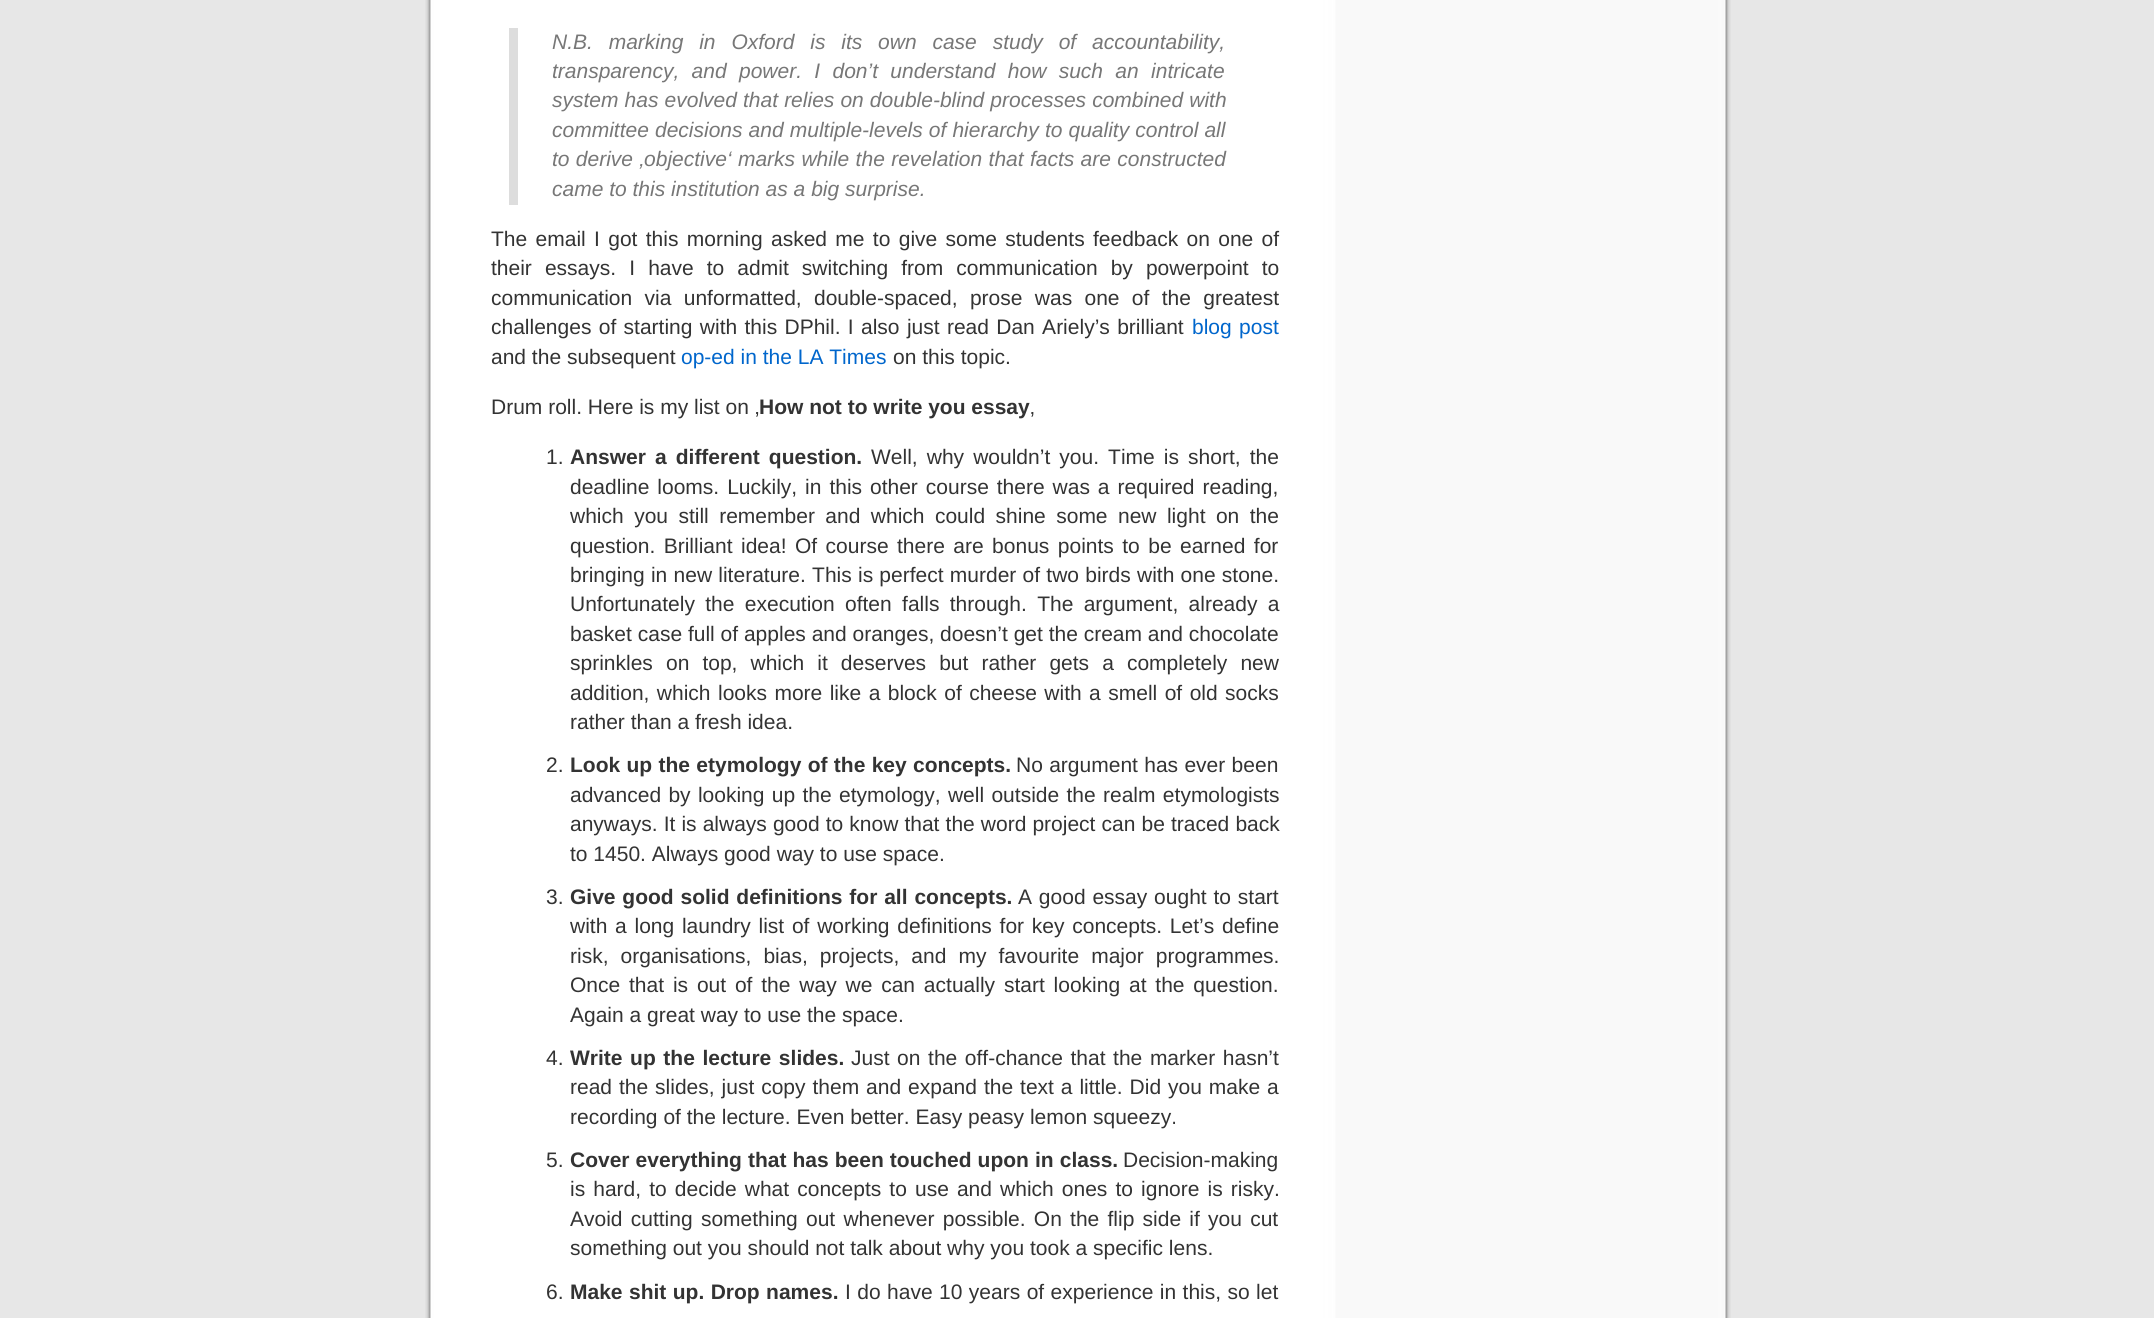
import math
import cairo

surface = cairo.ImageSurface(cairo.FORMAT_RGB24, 2154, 1318)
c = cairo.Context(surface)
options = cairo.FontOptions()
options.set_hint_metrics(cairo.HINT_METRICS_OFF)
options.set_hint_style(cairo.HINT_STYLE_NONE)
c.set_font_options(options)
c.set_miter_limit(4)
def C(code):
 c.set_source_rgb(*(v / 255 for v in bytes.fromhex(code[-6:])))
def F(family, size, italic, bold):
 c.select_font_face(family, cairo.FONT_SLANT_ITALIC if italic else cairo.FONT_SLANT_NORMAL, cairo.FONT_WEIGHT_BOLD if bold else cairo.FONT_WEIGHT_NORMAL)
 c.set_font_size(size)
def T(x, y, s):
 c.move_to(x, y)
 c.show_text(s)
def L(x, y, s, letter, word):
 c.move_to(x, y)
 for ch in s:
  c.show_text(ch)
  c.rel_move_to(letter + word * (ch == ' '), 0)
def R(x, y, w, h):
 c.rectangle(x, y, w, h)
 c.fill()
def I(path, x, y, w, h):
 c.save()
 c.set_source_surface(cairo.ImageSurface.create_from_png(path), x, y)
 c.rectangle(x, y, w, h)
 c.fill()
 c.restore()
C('e7e7e7')
c.paint()
I('1.png',425,0,1306,1318)
C('dddddd')
R(509,28,9,177)
F('Liberation Sans',21,1,0)
C('777777')
L(552,49,'N.B. marking in Oxford is its own case study of accountability,',0,10)
L(552,78,'transparency, and power. I don’t understand how such an intricate',0,6.5)
L(552,107,'system has evolved that relies on double-blind processes combined with',0,.25)
L(552,137,'committee decisions and multiple-levels of hierarchy to quality control all',0,.25)
L(552,166,'to derive ‚objective‘ marks while the revelation that facts are constructed',0,.5)
T(552,196,'came to this institution as a big surprise.')
F('Liberation Sans',21,0,0)
C('333333')
L(491,246,'The email I got this morning asked me to give some students feedback on one of',0,2.5)
L(491,275,'their essays. I have to admit switching from communication by powerpoint to',0,7.25)
L(491,305,'communication via unformatted, double-spaced, prose was one of the greatest',0,6.5)
L(491,334,'challenges of starting with this DPhil. I also just read Dan Ariely’s brilliant',0,1.5)
C('0066cc')
L(1192,334,'blog post',0,1.5)
C('333333')
T(491,364,'and the subsequent')
C('0066cc')
T(681,364,'op-ed in the LA Times')
C('333333')
T(893,364,'on this topic.')
T(491,414,'Drum roll. Here is my list on ‚')
F('Liberation Sans',21,0,1)
T(759,414,'How not to write you essay')
F('Liberation Sans',21,0,0)
T(1030,414,'‚')
T(546,464,'1.')
F('Liberation Sans',21,0,1)
L(570,464,'Answer a different question.',0,3.25)
F('Liberation Sans',21,0,0)
L(871,464,'Well, why wouldn’t you. Time is short, the',0,3.25)
L(570,494,'deadline looms. Luckily, in this other course there was a required reading,',0,2.1)
L(570,523,'which you still remember and which could shine some new light on the',0,4.6)
L(570,553,'question. Brilliant idea! Of course there are bonus points to be earned for',0,2.6)
L(570,582,'bringing in new literature. This is perfect murder of two birds with one stone.',0,.4)
L(570,611,'Unfortunately the execution often falls through. The argument, already a',0,4.5)
T(570,641,'basket case full of apples and oranges, doesn’t get the cream and chocolate')
L(570,670,'sprinkles on top, which it deserves but rather gets a completely new',0,7.25)
L(570,700,'addition, which looks more like a block of cheese with a smell of old socks',0,1.6)
T(570,729,'rather than a fresh idea.')
T(546,772,'2.')
F('Liberation Sans',21,0,1)
L(570,772,'Look up the etymology of the key concepts.',0,.5)
F('Liberation Sans',21,0,0)
L(1016,772,'No argument has ever been',0,.5)
L(570,802,'advanced by looking up the etymology, well outside the realm etymologists',0,1.5)
L(570,831,'anyways. It is always good to know that the word project can be traced back',0,.25)
T(570,861,'to 1450. Always good way to use space.')
T(546,904,'3.')
F('Liberation Sans',21,0,1)
L(570,904,'Give good solid definitions for all concepts.',0,1)
F('Liberation Sans',21,0,0)
L(1018,904,'A good essay ought to start',0,1)
L(570,933,'with a long laundry list of working definitions for key concepts. Let’s define',0,1.9)
L(570,963,'risk, organisations, bias, projects, and my favourite major programmes.',0,6.25)
L(570,992,'Once that is out of the way we can actually start looking at the question.',0,3)
T(570,1022,'Again a great way to use the space.')
T(546,1065,'4.')
F('Liberation Sans',21,0,1)
L(570,1065,'Write up the lecture slides.',0,1.75)
F('Liberation Sans',21,0,0)
L(851,1065,'Just on the off-chance that the marker hasn’t',0,1.75)
L(570,1094,'read the slides, just copy them and expand the text a little. Did you make a',0,1.1)
T(570,1124,'recording of the lecture. Even better. Easy peasy lemon squeezy.')
T(546,1167,'5.')
F('Liberation Sans',21,0,1)
L(570,1167,'Cover everything that has been touched upon in class.',0,.25)
F('Liberation Sans',21,0,0)
T(1123,1167,'Decision-making')
L(570,1196,'is hard, to decide what concepts to use and which ones to ignore is risky.',0,2.25)
L(570,1226,'Avoid cutting something out whenever possible. On the flip side if you cut',0,2.4)
T(570,1255,'something out you should not talk about why you took a specific lens.')
T(546,1299,'6.')
F('Liberation Sans',21,0,1)
L(570,1299,'Make shit up. Drop names.',0,.6)
F('Liberation Sans',21,0,0)
L(845,1299,'I do have 10 years of experience in this, so let',0,.6)
surface.write_to_png('o.png')
